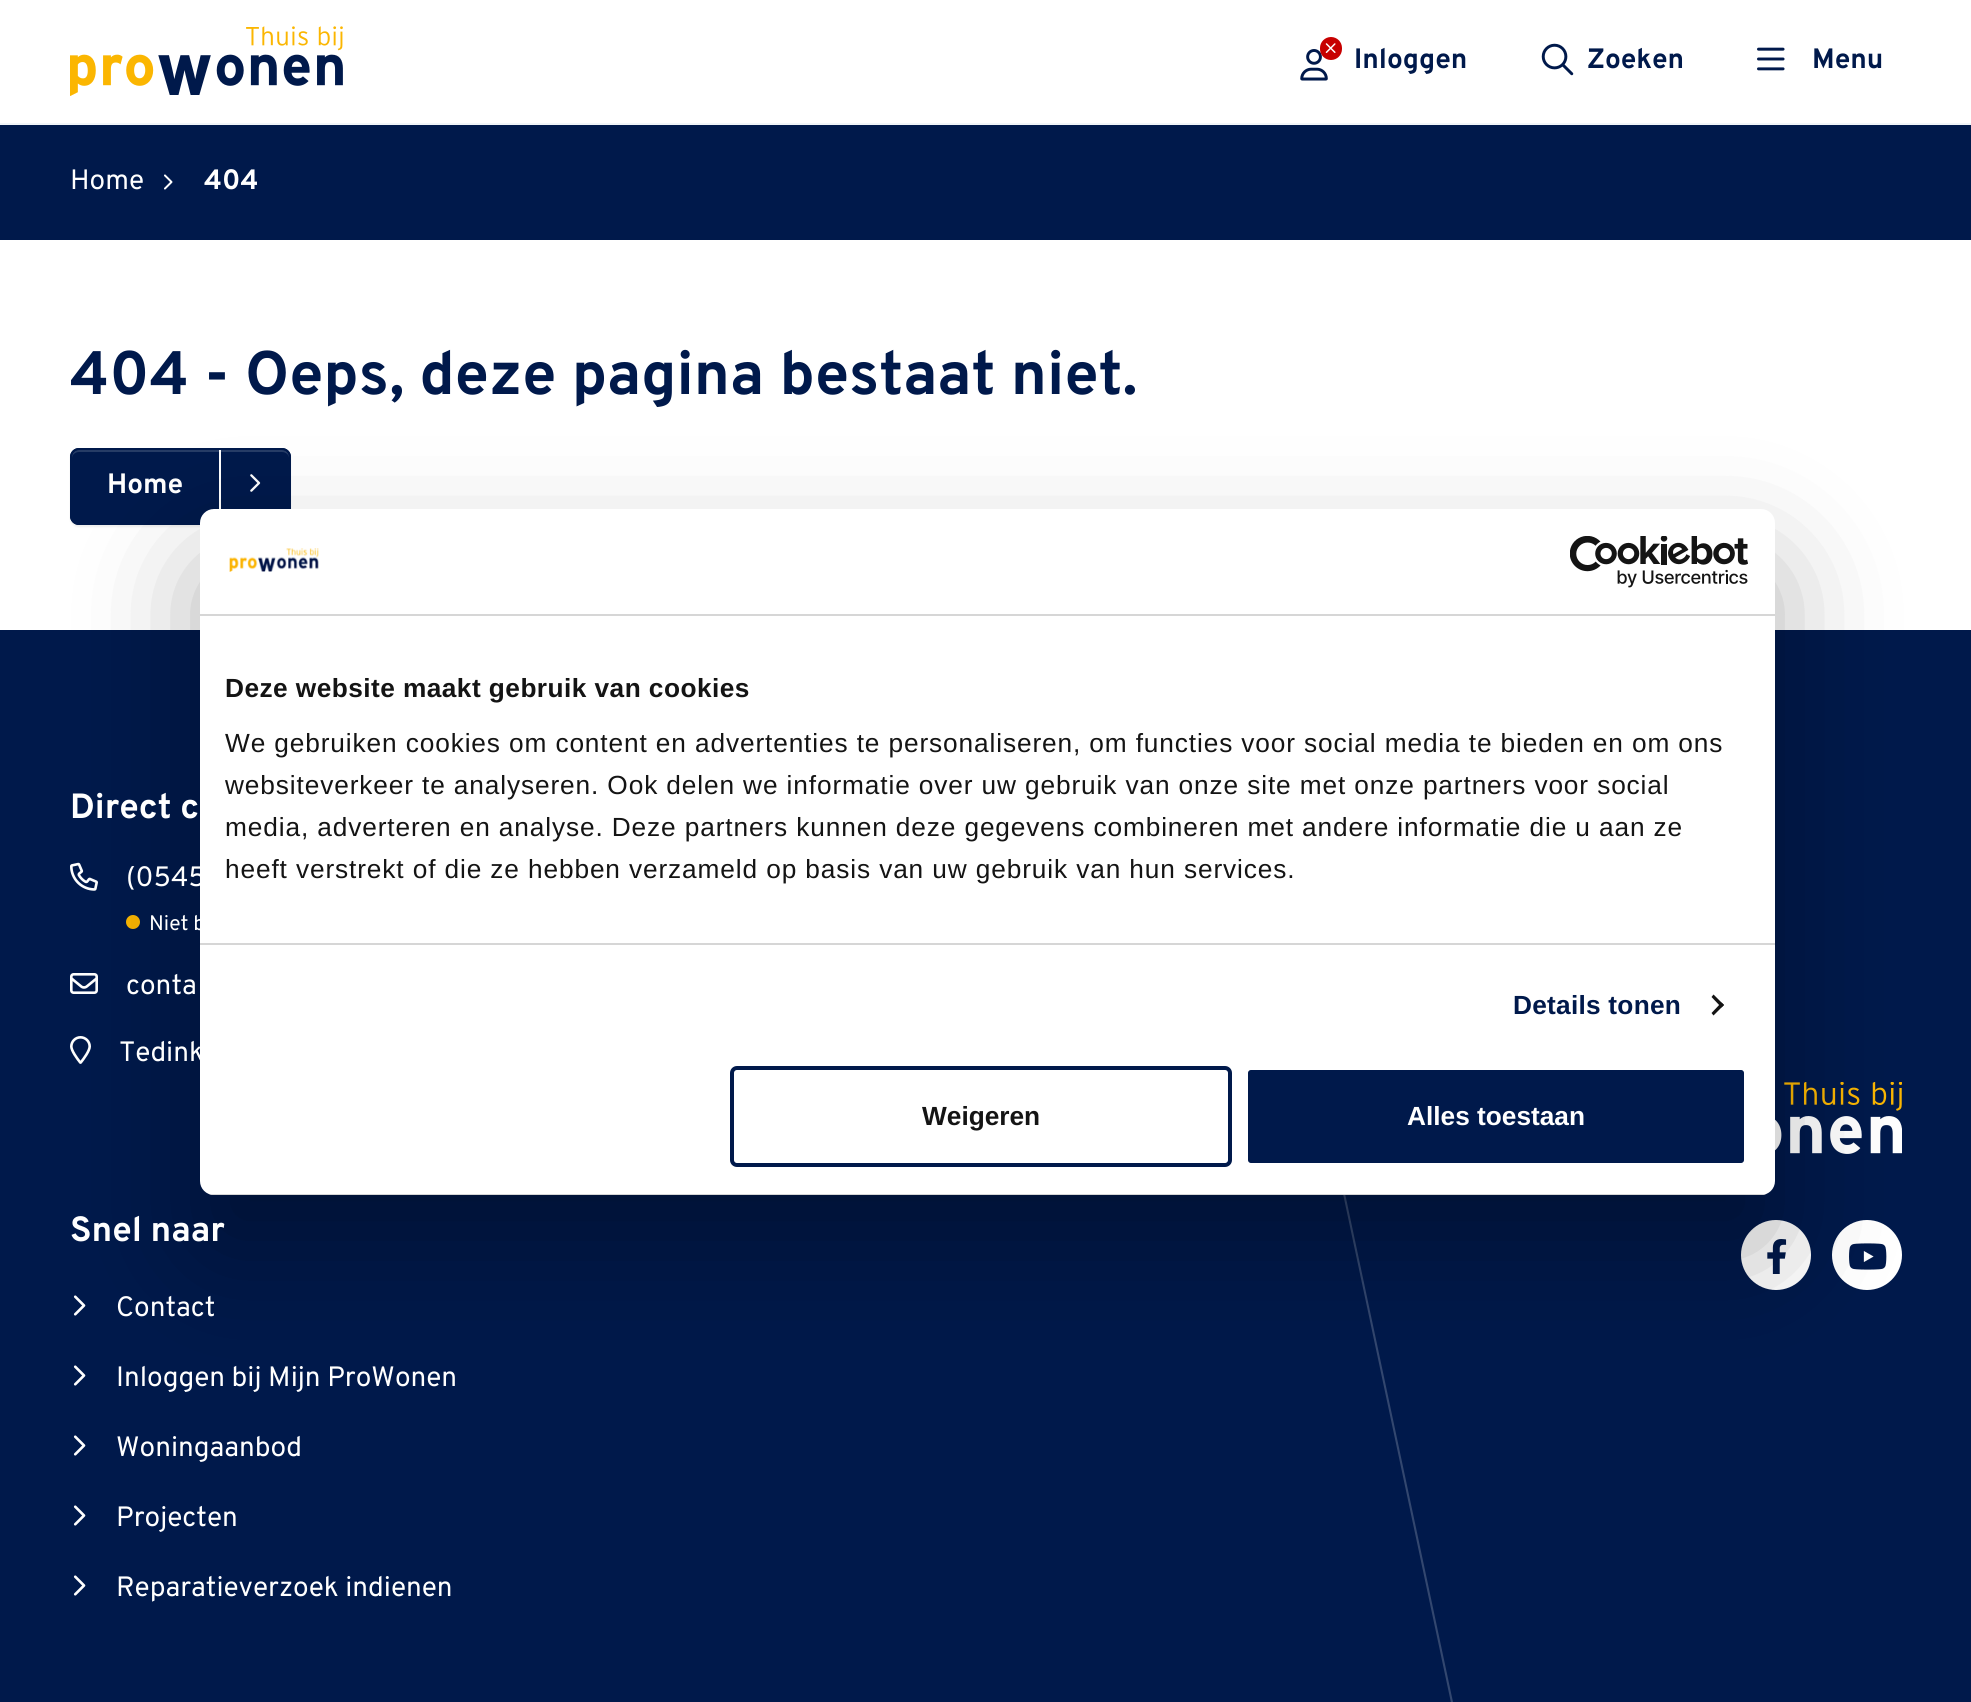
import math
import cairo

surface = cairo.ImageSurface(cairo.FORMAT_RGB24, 1971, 1702)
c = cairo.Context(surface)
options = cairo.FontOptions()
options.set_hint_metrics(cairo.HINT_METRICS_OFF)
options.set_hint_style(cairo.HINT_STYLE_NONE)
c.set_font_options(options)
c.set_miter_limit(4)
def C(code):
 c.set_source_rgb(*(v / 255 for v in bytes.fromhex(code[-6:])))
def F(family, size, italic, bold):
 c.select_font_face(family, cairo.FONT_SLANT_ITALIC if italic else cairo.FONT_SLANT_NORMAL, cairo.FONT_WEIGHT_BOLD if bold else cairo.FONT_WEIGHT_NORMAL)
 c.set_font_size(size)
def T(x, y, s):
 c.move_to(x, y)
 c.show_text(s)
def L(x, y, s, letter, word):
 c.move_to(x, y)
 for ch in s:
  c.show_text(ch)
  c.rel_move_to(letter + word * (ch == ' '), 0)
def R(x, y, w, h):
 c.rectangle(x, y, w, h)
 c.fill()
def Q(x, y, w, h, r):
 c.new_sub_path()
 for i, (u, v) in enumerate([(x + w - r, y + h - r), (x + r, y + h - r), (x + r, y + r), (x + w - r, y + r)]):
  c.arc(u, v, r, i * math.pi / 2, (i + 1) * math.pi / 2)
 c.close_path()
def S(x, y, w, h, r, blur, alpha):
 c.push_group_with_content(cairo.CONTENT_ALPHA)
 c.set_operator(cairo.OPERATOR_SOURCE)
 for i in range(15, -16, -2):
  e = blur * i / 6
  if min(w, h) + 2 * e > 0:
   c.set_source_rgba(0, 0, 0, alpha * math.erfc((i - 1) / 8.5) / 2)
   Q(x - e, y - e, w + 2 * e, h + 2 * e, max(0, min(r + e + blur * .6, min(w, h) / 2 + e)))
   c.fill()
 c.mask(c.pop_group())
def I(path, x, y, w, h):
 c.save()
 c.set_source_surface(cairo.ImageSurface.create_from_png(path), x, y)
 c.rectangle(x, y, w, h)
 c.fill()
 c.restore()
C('ffffff')
c.paint()
C('f1f5f8')
R(0,123,1971,2)
I('1.png',70,26,273,70)
I('2.png',1300,49,28,32)
C('c70000')
Q(1320,37,22,23,11)
c.fill()
I('3.png',1325,43,11,10)
F('Overpass',28,0,1)
C('00194b')
T(1354,68,'Inloggen')
I('4.png',1541,43,33,33)
T(1587,68,'Zoeken')
I('5.png',1757,47,28,24)
T(1812,68,'Menu')
R(0,125,1971,115)
F('Overpass',28,0,0)
C('ffffff')
T(70,189,'Home')
I('6.png',164,174,9,16)
F('Overpass',28,0,1)
T(204,189,'404')
F('Overpass',61.25,0,1)
C('00194b')
T(70,394,'404 - Oeps, deze pagina bestaat niet.')
C('000000')
S(70,450,221,77,9,1,.07)
C('00194b')
Q(70,448,221,77,9)
c.fill()
C('263c66')
c.new_path()
c.move_to(79,452)
c.line_to(282,452)
c.curve_to(286,452,289,455,289,458)
c.line_to(289,457)
c.curve_to(289,453,286,450,282,450)
c.line_to(79,450)
c.curve_to(75,450,72,453,72,457)
c.line_to(72,458)
c.curve_to(72,455,75,452,79,452)
c.close_path()
c.fill()
Q(71,449,219,75,8)
C('00194b')
c.stroke()
F('Overpass',28,0,1)
C('ffffff')
T(107,493,'Home')
R(219,450,2,59)
I('7.png',250,474,11,18)
C('00194b')
R(0,630,1971,1072)
I('10.png',70,862,28,29)
C('fbb601')
c.arc(133,922,7,0,2 * math.pi)
c.fill()
I('11.png',70,973,28,21)
I('12.png',70,1036,21,28)
I('13.png',73,1295,13,21)
I('13.png',73,1365,13,21)
I('14.png',1775,1082,127,72)
C('ffffff')
c.arc(1776,1255,35,0,2 * math.pi)
c.fill()
I('15.png',1767,1239,20,35)
c.arc(1867,1255,35,0,2 * math.pi)
c.fill()
I('16.png',1849,1243,38,27)
C('33476f')
c.new_path()
c.move_to(1203,534)
c.line_to(1205,534)
c.line_to(1560,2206)
c.line_to(1558,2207)
c.close_path()
c.fill()
C('000000')
S(200,565,1575,686,14,59.5,.3)
C('ffffff')
Q(200,509,1575,686,14)
c.fill()
C('d6d6d6')
R(200,614,1575,2)
I('8.png',229,548,90,24)
I('9.png',1570,536,178,52)
R(200,943,1575,2)
F('Liberation Sans',26.25,0,1)
C('141414')
L(225,697,'Deze website maakt gebruik van cookies',.45,0)
F('Liberation Sans',26.25,0,0)
L(225,752,'We gebruiken cookies om content en advertenties te personaliseren, om functies voor social media te bieden en om ons',.88,0)
L(225,794,'websiteverkeer te analyseren. Ook delen we informatie over uw gebruik van onze site met onze partners voor social',.88,0)
L(225,836,'media, adverteren en analyse. Deze partners kunnen deze gegevens combineren met andere informatie die u aan ze',.88,0)
L(225,878,'heeft verstrekt of die ze hebben verzameld op basis van uw gebruik van hun services.',.88,0)
F('Liberation Sans',26.25,0,1)
C('00194b')
L(1513,1014,'Details tonen',.25,0)
C('141414')
c.new_path()
c.move_to(1713.5,994.5)
c.line_to(1724,1005)
c.line_to(1721.5,1007.5)
c.line_to(1711.5,997)
c.close_path()
c.fill()
c.new_path()
c.move_to(1721.5,1002.5)
c.line_to(1724,1005)
c.line_to(1713.5,1015.5)
c.line_to(1711.5,1013)
c.close_path()
c.fill()
c.save()
Q(200,509,1575,686,14)
c.clip()
C('d6d6d6')
R(209,1194,1557,1)
c.restore()
Q(732,1068,498,97,5)
C('00194b')
c.set_line_width(4)
c.stroke()
C('141414')
T(922,1125,'Weigeren')
C('00194b')
Q(1246,1068,500,97,5)
c.fill_preserve()
C('ffffff')
c.stroke()
T(1407,1125,'Alles toestaan')
F('Overpass',35,0,1)
T(70,818,'Direct c')
F('Overpass',28,0,0)
T(126,886,'(0545')
F('Overpass',21,0,0)
T(149,930,'Niet b')
F('Overpass',28,0,0)
T(126,994,'conta')
T(119,1061,'Tedink')
F('Overpass',35,0,1)
T(70,1241,'Snel naar')
F('Overpass',28,0,0)
T(116,1316,'Contact')
T(116,1386,'Inloggen bij Mijn ProWonen')
I('13.png',73,1435,13,21)
T(116,1456,'Woningaanbod')
I('13.png',73,1505,13,21)
T(116,1526,'Projecten')
I('13.png',73,1575,13,21)
T(116,1596,'Reparatieverzoek indienen')
surface.write_to_png('o.png')
